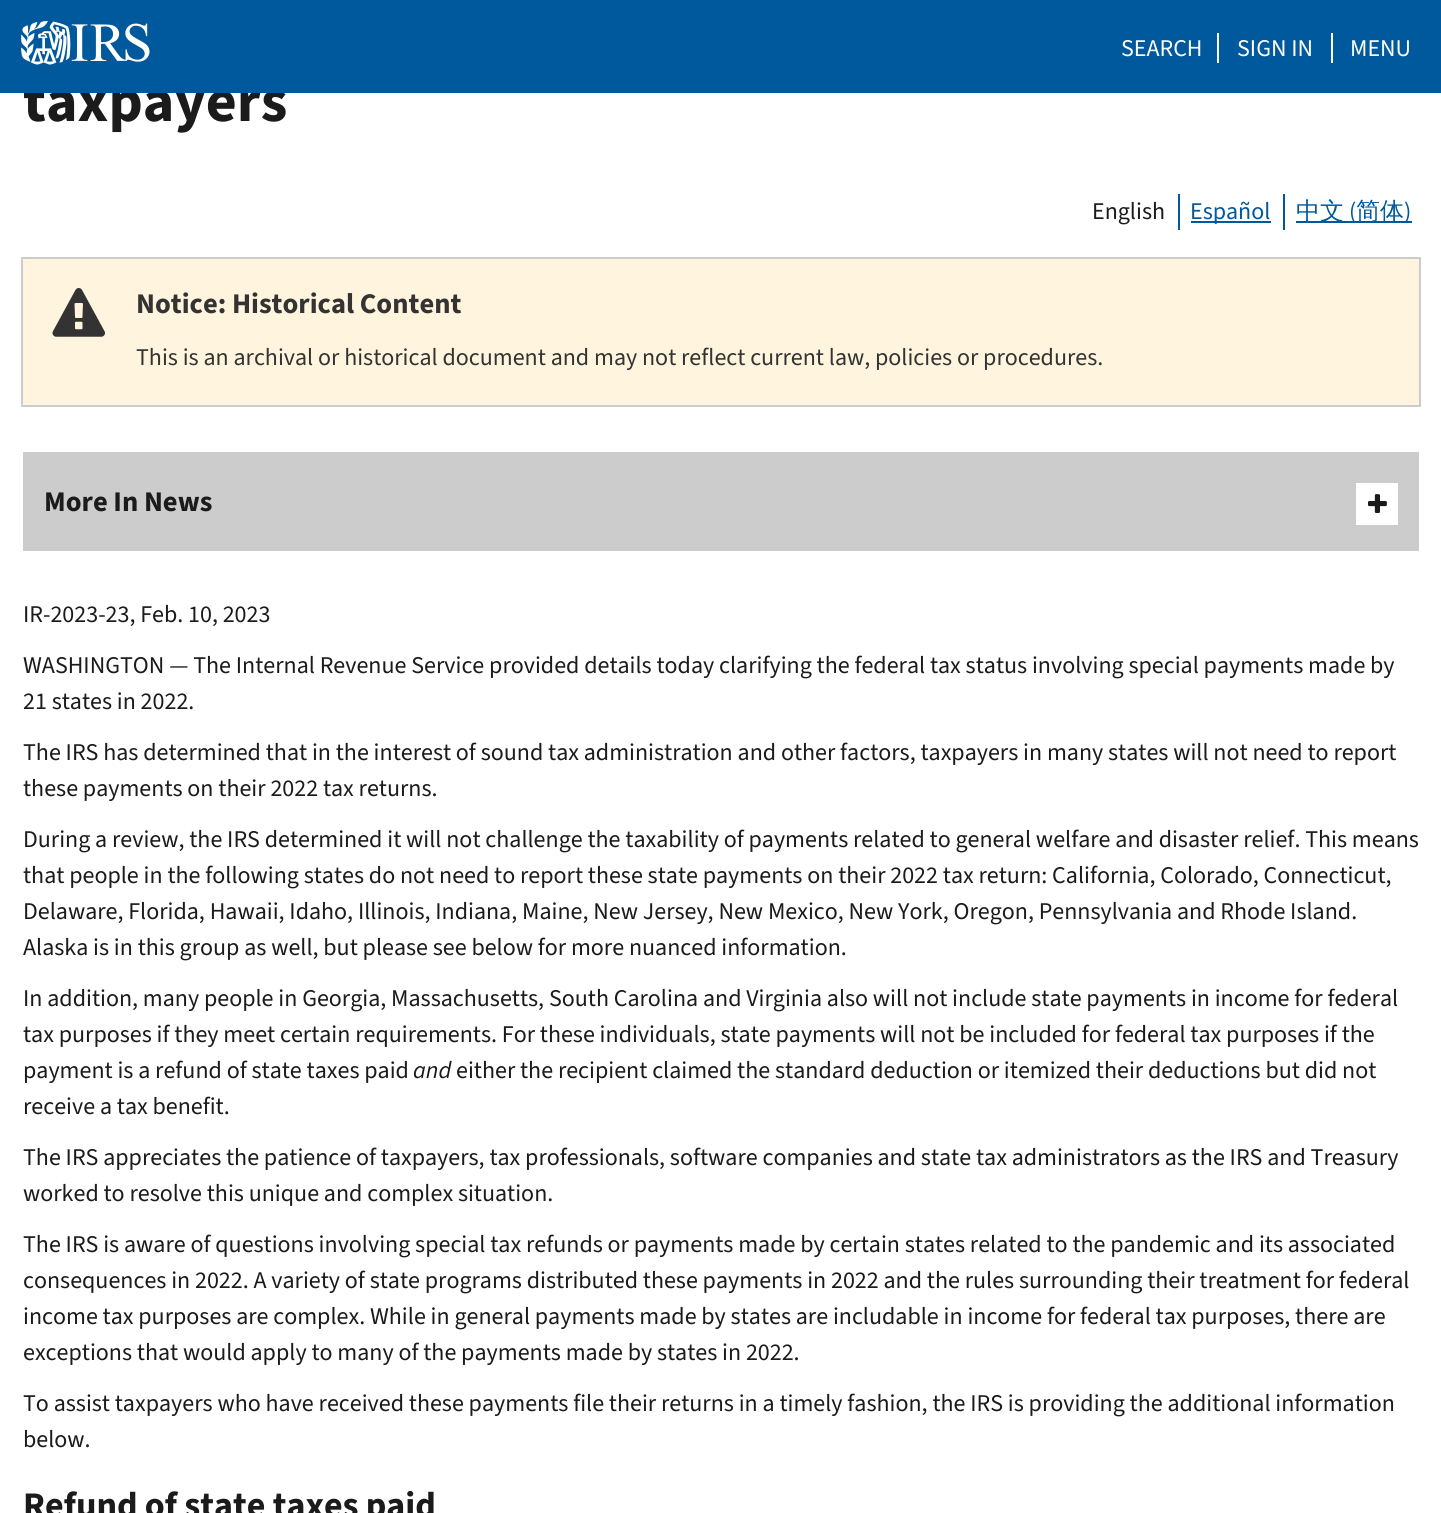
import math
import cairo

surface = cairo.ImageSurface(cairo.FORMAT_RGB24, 1441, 1513)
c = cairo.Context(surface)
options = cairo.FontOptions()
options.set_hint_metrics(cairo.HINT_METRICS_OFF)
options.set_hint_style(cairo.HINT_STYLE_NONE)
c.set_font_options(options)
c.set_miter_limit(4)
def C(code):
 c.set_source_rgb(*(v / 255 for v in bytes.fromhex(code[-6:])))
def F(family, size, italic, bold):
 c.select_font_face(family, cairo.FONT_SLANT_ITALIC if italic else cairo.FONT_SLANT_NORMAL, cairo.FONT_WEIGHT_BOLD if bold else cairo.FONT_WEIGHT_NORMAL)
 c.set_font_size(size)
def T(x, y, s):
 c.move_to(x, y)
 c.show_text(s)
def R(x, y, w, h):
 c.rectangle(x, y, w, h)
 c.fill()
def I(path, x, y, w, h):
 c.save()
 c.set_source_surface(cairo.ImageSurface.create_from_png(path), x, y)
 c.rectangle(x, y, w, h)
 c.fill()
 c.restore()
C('ffffff')
c.paint()
F('Source Sans 3',60,0,1)
C('1b1b1b')
T(23,121,'taxpayers')
C('00599c')
R(0,0,1441,93)
I('1.png',21,21,129,44)
C('ffffff')
R(1217,33,2,30)
F('Source Sans 3',24,0,0)
T(1121,56,'SEARCH')
R(1331,33,2,30)
T(1237,56,'SIGN IN')
T(1350,56,'MENU')
C('1b1b1b')
T(1092,219,'English')
C('00599c')
R(1178,194,2,36)
R(1191,221,80,2)
T(1190,219,'Español')
R(1283,194,2,36)
R(1296,221,116,2)
F('WenQuanYi Zen Hei Medium',24,0,0)
T(1296,219,'中文')
F('Source Sans 3',24,0,0)
T(1349,219,'(')
F('WenQuanYi Zen Hei Medium',24,0,0)
T(1356,219,'简体')
F('Source Sans 3',24,0,0)
T(1404,219,')')
C('fff4dd')
c.rectangle(22,258,1398,148)
c.fill_preserve()
C('cccccc')
c.stroke()
I('2.png',52,288,53,49)
F('Source Sans 3',28.5,0,1)
C('333333')
T(136,313,'Notice: Historical Content')
F('Source Sans 3',24,0,0)
T(136,365,'This is an archival or historical document and may not reflect current law, policies or procedures.')
C('cccccc')
R(23,452,1396,99)
F('Source Sans 3',28.5,0,1)
C('1b1b1b')
T(44,511,'More In News')
C('ffffff')
R(1356,483,42,42)
I('3.png',1368,494,19,19)
F('Source Sans 3',24,0,0)
C('1b1b1b')
T(23,622,'IR-2023-23, Feb. 10, 2023')
T(23,673,'WASHINGTON — The Internal Revenue Service provided details today clarifying the federal tax status involving special payments made by')
T(23,709,'21 states in 2022.')
T(23,760,'The IRS has determined that in the interest of sound tax administration and other factors, taxpayers in many states will not need to report')
T(23,796,'these payments on their 2022 tax returns.')
T(23,847,'During a review, the IRS determined it will not challenge the taxability of payments related to general welfare and disaster relief. This means')
T(23,883,'that people in the following states do not need to report these state payments on their 2022 tax return: California, Colorado, Connecticut,')
T(23,919,'Delaware, Florida, Hawaii, Idaho, Illinois, Indiana, Maine, New Jersey, New Mexico, New York, Oregon, Pennsylvania and Rhode Island.')
T(23,955,'Alaska is in this group as well, but please see below for more nuanced information.')
T(23,1006,'In addition, many people in Georgia, Massachusetts, South Carolina and Virginia also will not include state payments in income for federal')
T(23,1042,'tax purposes if they meet certain requirements. For these individuals, state payments will not be included for federal tax purposes if the')
T(23,1078,'payment is a refund of state taxes paid')
F('Source Sans 3',24,1,0)
T(413,1078,'and')
F('Source Sans 3',24,0,0)
T(456,1078,'either the recipient claimed the standard deduction or itemized their deductions but did not')
T(23,1114,'receive a tax benefit.')
T(23,1165,'The IRS appreciates the patience of taxpayers, tax professionals, software companies and state tax administrators as the IRS and Treasury')
T(23,1201,'worked to resolve this unique and complex situation.')
T(23,1252,'The IRS is aware of questions involving special tax refunds or payments made by certain states related to the pandemic and its associated')
T(23,1288,'consequences in 2022. A variety of state programs distributed these payments in 2022 and the rules surrounding their treatment for federal')
T(23,1324,'income tax purposes are complex. While in general payments made by states are includable in income for federal tax purposes, there are')
T(23,1360,'exceptions that would apply to many of the payments made by states in 2022.')
T(23,1411,'To assist taxpayers who have received these payments file their returns in a timely fashion, the IRS is providing the additional information')
T(23,1447,'below.')
F('Source Sans 3',36,0,1)
T(23,1517,'Refund of state taxes paid')
surface.write_to_png('o.png')
